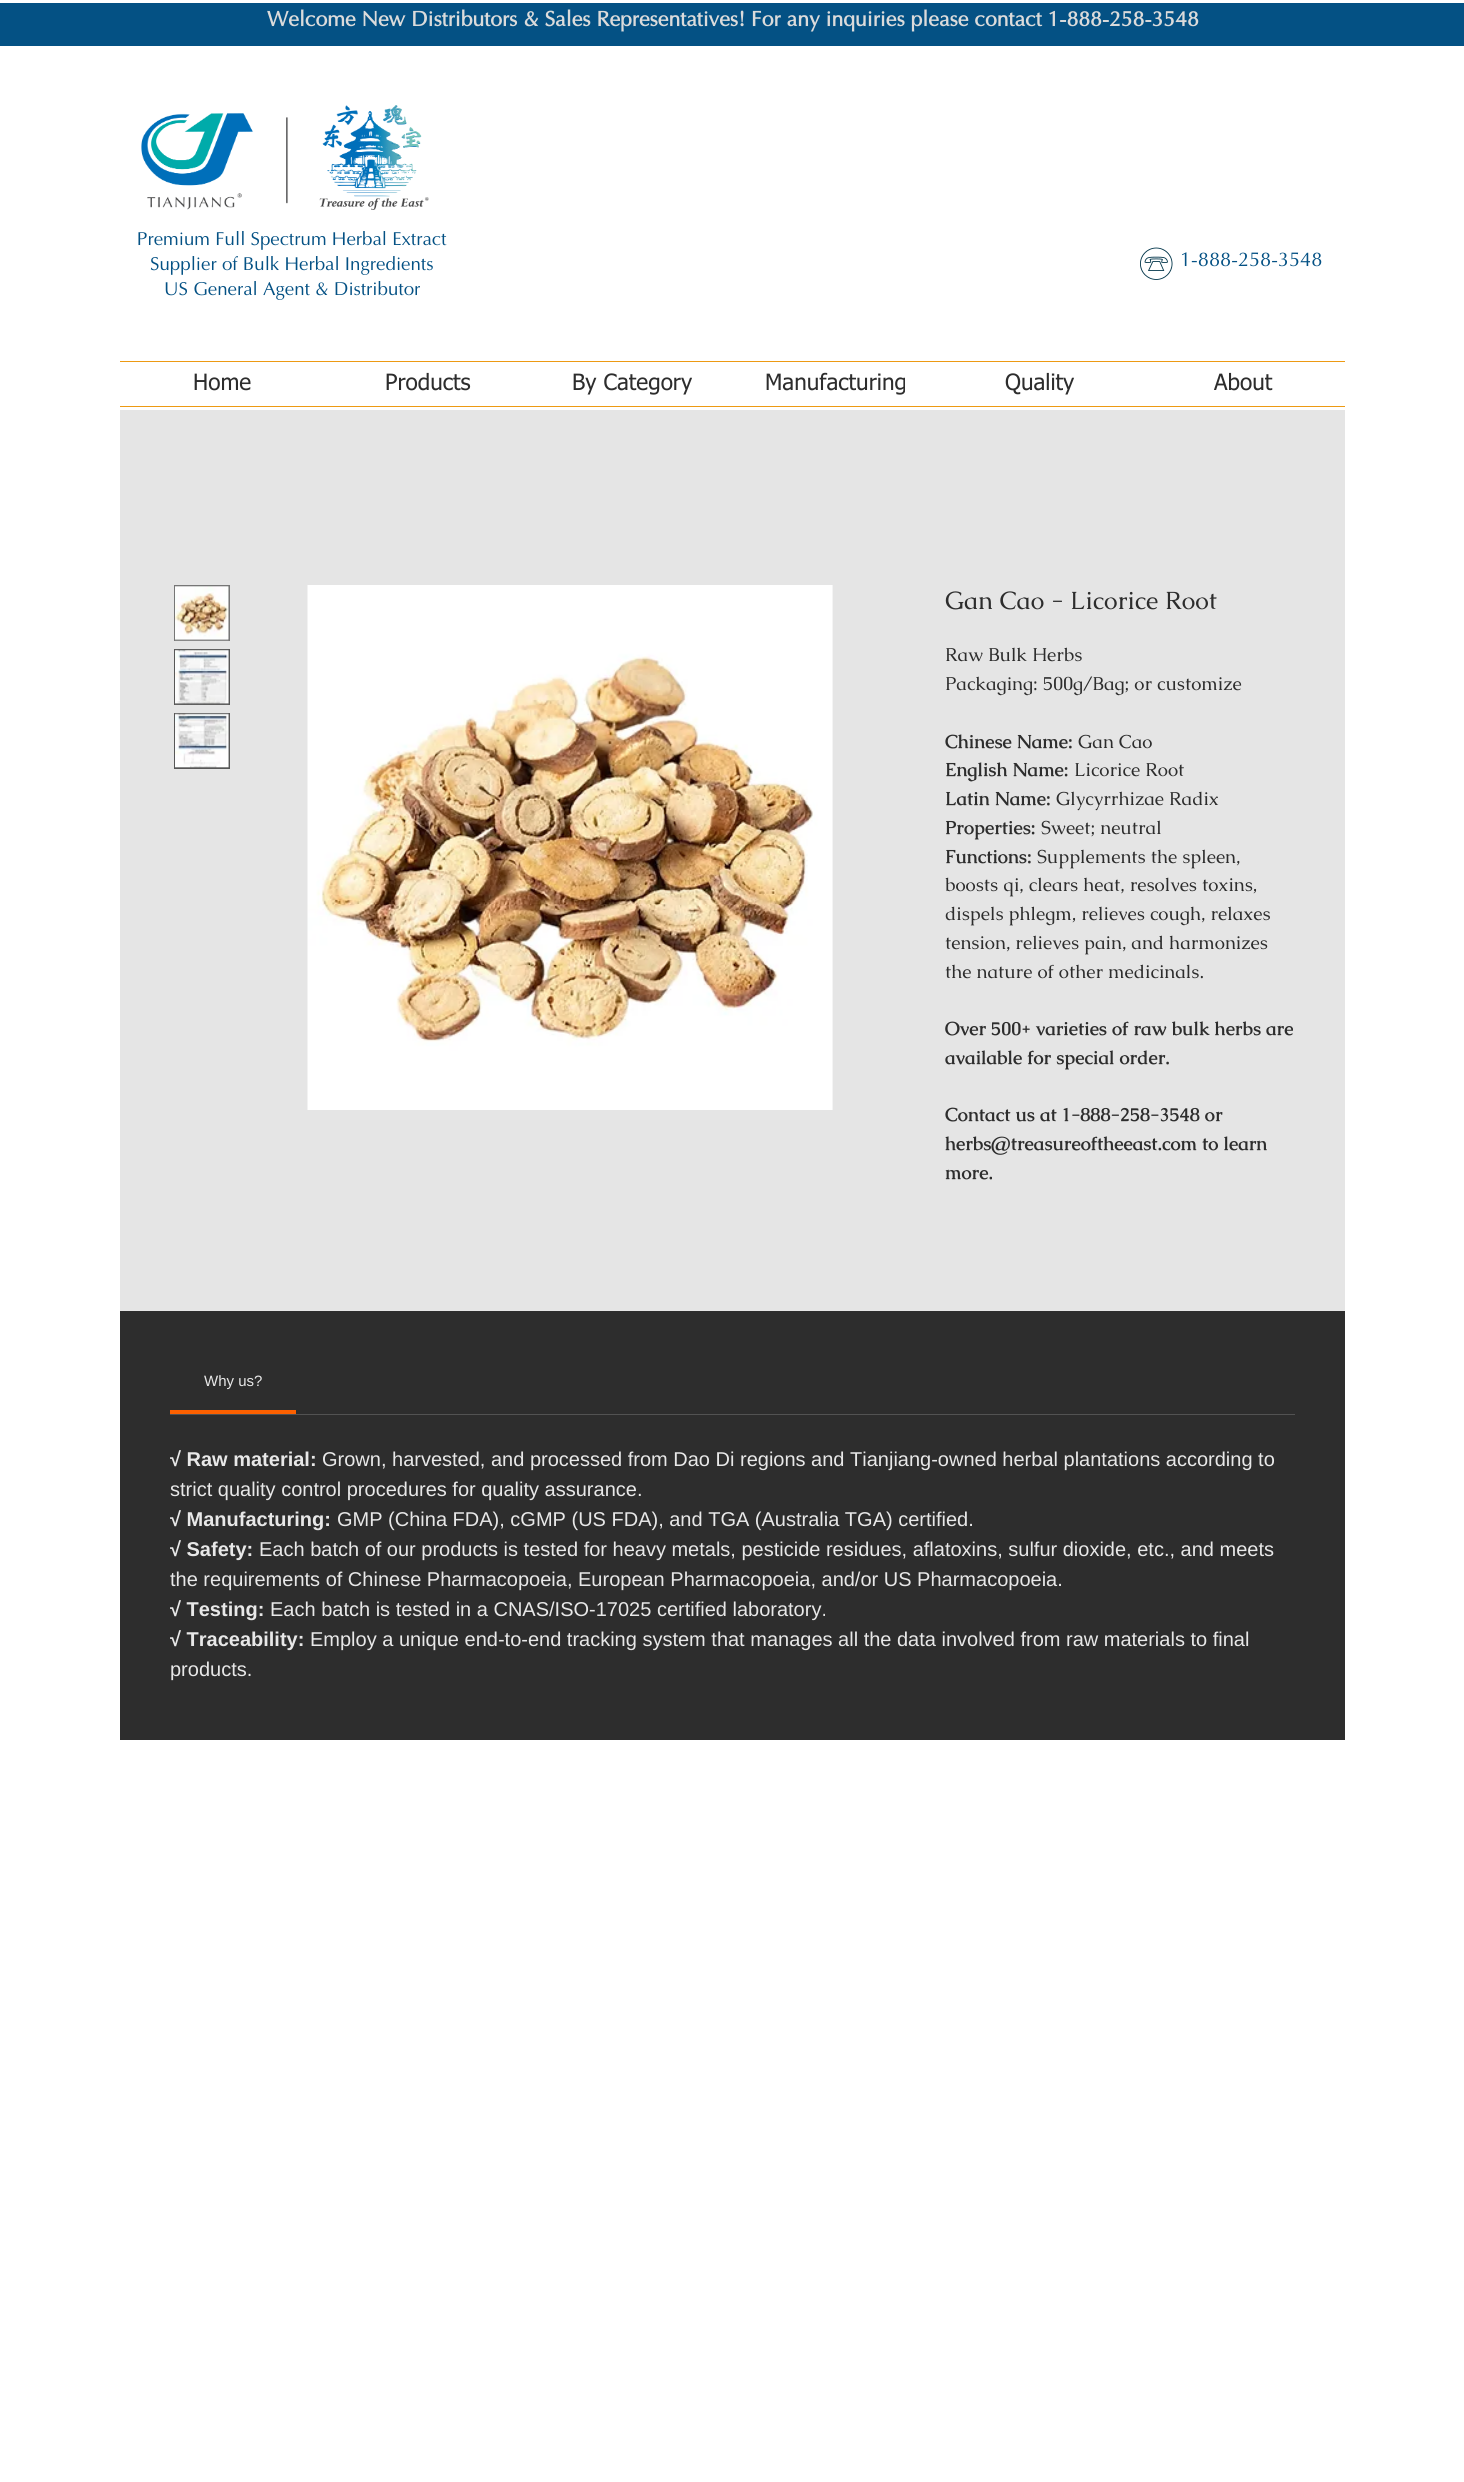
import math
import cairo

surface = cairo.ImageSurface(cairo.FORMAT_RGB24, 1464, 2482)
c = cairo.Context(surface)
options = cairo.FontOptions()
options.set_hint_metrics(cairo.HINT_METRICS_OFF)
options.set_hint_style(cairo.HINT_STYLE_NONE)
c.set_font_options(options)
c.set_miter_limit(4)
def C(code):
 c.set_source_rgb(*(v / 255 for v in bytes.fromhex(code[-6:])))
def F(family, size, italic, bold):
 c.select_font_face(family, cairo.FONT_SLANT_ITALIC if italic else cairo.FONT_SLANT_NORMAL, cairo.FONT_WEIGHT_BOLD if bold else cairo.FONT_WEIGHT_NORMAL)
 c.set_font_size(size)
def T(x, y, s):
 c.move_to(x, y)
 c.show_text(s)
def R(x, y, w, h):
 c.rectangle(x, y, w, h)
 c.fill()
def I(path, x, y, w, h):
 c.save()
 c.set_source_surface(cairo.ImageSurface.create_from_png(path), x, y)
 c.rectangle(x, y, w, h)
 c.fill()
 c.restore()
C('ffffff')
c.paint()
C('045184')
R(0,3,1464,43)
F('Optima',21.25,0,1)
C('dbdbdb')
T(267,26,'Welcome New Distributors & Sales Representatives! For any inquiries please contact 1-888-258-3548')
I('1.png',141,105,288,105)
F('Optima',18.75,0,0)
C('045184')
T(137,245,'Premium Full Spectrum Herbal Extract')
T(150,270,'Supplier of Bulk Herbal Ingredients')
T(164,295,'US General Agent & Distributor')
I('2.png',1140,247,33,33)
F('Optima',20,0,0)
T(1180,266,'1-888-258-3548')
C('ed9a13')
R(120,361,1225,1)
R(120,406,1225,1)
F('tahoma',22.5,0,0)
C('2d2d2d')
T(193,390,'Home')
T(385,390,'Products')
T(572,390,'By Category')
T(765,390,'Manufacturing')
T(1005,390,'Quality')
T(1214,390,'About')
C('e5e5e5')
R(120,410,1225,901)
C('575757')
c.rectangle(174.5,585.5,55,55)
c.fill_preserve()
C('767676')
c.set_line_width(1)
c.stroke()
I('3.png',175,586,54,55)
C('575757')
R(174,649,56,56)
I('4.png',175,649,54,56)
R(174,713,56,56)
I('5.png',175,713,54,55)
I('6.png',307,585,526,525)
F('Caudex',25,0,0)
C('2d2d2d')
T(945,609,'Gan Cao - Licorice Root')
F('Caudex',18.75,0,0)
T(945,661,'Raw Bulk Herbs')
T(945,690,'Packaging: 500g/Bag; or customize')
F('Caudex',18.75,0,1)
T(945,748,'Chinese Name:')
F('Caudex',18.75,0,0)
T(1078,748,'Gan Cao')
F('Caudex',18.75,0,1)
T(945,776,'English Name:')
F('Caudex',18.75,0,0)
T(1074,776,'Licorice Root')
F('Caudex',18.75,0,1)
T(945,805,'Latin Name:')
F('Caudex',18.75,0,0)
T(1056,805,'Glycyrrhizae Radix')
F('Caudex',18.75,0,1)
T(945,834,'Properties:')
F('Caudex',18.75,0,0)
T(1041,834,'Sweet; neutral')
F('Caudex',18.75,0,1)
T(945,863,'Functions:')
F('Caudex',18.75,0,0)
T(1037,863,'Supplements the spleen,')
T(945,891,'boosts qi, clears heat, resolves toxins,')
T(945,920,'dispels phlegm, relieves cough, relaxes')
T(945,949,'tension, relieves pain, and harmonizes')
T(945,978,'the nature of other medicinals.')
F('Caudex',18.75,0,1)
T(945,1035,'Over 500+ varieties of raw bulk herbs are')
T(945,1064,'available for special order.')
T(945,1121,'Contact us at 1-888-258-3548 or')
T(945,1150,'herbs@treasureoftheeast.com to learn')
T(945,1179,'more.')
R(120,1311,1225,429)
C('525252')
R(170,1414,1125,1)
C('fc6000')
R(170,1410,126,4)
F('Liberation Sans',15,0,0)
C('e8e8e8')
T(204,1386,'Why us?')
F('Liberation Sans',20,0,1)
T(170,1466,'√ Raw material:')
F('Liberation Sans',20,0,0)
T(322,1466,'Grown, harvested, and processed from Dao Di regions and Tianjiang-owned herbal plantations according to')
T(170,1496,'strict quality control procedures for quality assurance.')
F('Liberation Sans',20,0,1)
T(170,1526,'√ Manufacturing:')
F('Liberation Sans',20,0,0)
T(337,1526,'GMP (China FDA), cGMP (US FDA), and TGA (Australia TGA) certified.')
F('Liberation Sans',20,0,1)
T(170,1556,'√ Safety:')
F('Liberation Sans',20,0,0)
T(259,1556,'Each batch of our products is tested for heavy metals, pesticide residues, aflatoxins, sulfur dioxide, etc., and meets')
T(170,1586,'the requirements of Chinese Pharmacopoeia, European Pharmacopoeia, and/or US Pharmacopoeia.')
F('Liberation Sans',20,0,1)
T(170,1616,'√ Testing:')
F('Liberation Sans',20,0,0)
T(270,1616,'Each batch is tested in a CNAS/ISO-17025 certified laboratory.')
F('Liberation Sans',20,0,1)
T(170,1646,'√ Traceability:')
F('Liberation Sans',20,0,0)
T(310,1646,'Employ a unique end-to-end tracking system that manages all the data involved from raw materials to final')
T(170,1676,'products.')
surface.write_to_png('o.png')
